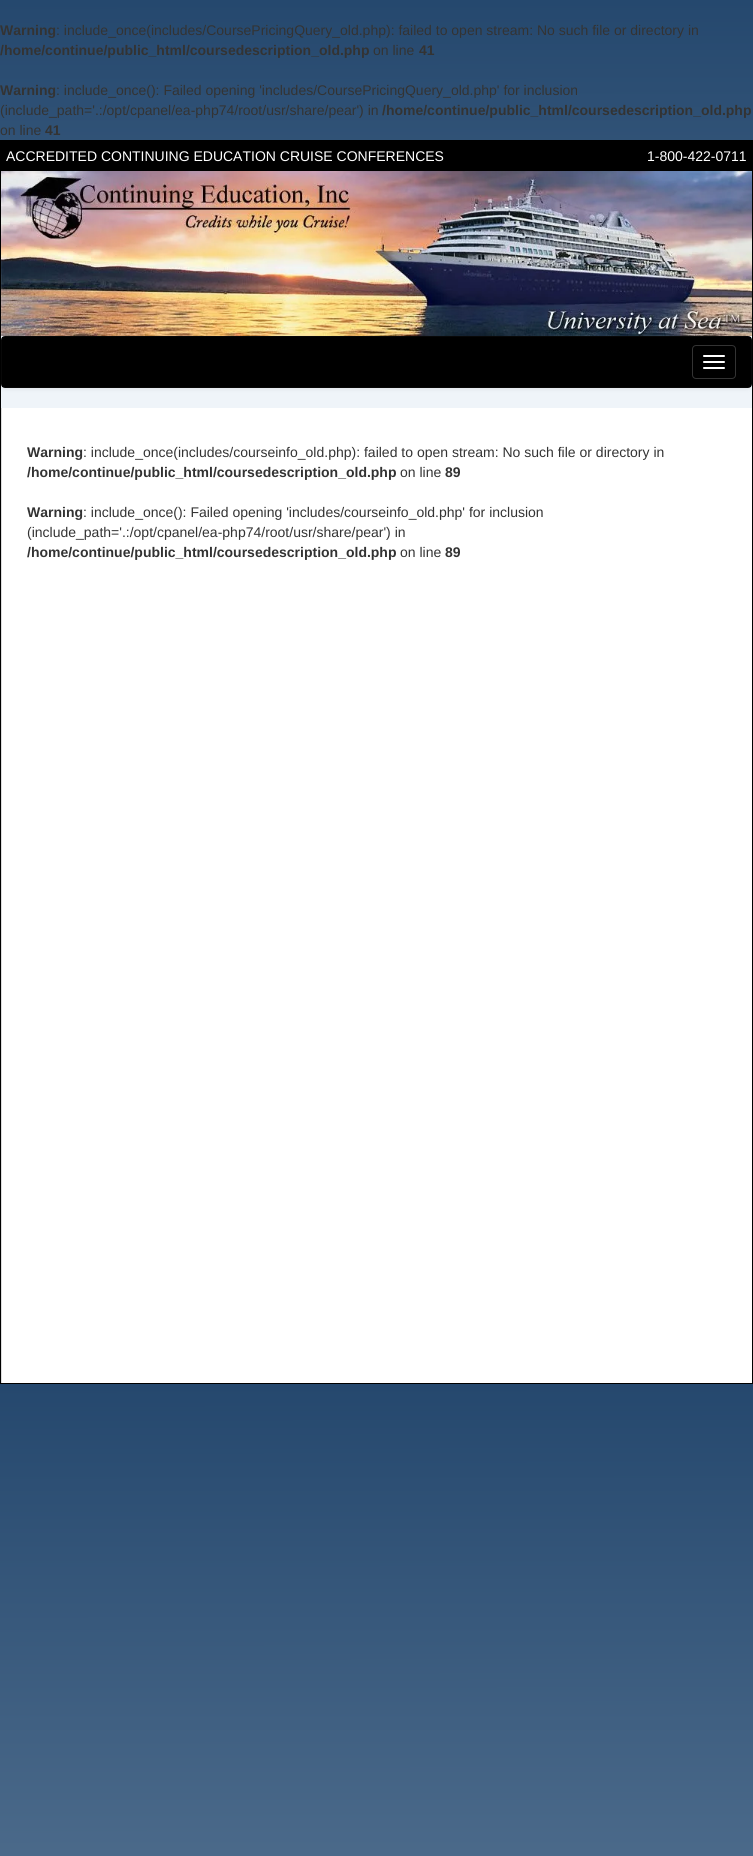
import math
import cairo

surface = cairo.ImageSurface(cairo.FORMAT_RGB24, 753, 1856)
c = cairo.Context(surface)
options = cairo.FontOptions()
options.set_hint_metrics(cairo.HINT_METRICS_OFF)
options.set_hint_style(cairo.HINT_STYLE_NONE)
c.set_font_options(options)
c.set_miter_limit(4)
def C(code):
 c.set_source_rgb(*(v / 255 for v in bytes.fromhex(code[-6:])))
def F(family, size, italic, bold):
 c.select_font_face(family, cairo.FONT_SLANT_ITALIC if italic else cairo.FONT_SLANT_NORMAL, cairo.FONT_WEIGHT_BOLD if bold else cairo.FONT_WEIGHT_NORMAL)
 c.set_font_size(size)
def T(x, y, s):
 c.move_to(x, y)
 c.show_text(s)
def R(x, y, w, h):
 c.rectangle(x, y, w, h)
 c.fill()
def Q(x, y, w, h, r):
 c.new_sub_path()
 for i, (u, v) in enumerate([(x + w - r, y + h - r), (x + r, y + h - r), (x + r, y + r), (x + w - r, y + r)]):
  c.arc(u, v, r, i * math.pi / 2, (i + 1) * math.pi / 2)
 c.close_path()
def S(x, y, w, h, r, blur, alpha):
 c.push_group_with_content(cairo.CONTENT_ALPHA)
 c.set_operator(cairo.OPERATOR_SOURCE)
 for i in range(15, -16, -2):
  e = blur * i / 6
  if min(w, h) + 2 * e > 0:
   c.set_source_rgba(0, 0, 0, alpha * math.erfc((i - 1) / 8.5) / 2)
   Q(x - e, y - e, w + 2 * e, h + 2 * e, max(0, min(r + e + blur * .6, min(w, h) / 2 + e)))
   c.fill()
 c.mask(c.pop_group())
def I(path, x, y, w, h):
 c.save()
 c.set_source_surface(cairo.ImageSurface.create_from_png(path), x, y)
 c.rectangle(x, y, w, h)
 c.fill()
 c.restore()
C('ffffff')
c.paint()
gradient = cairo.LinearGradient(376,0,377,1384)
gradient.add_color_stop_rgba(0,0.145,0.282,0.431,1)
gradient.add_color_stop_rgba(.5,0.361,0.475,0.592,1)
gradient.add_color_stop_rgba(1,0.145,0.282,0.431,1)
c.set_source(gradient)
R(0,0,753,140)
gradient = cairo.LinearGradient(376,1384,377,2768)
gradient.add_color_stop_rgba(0,0.145,0.282,0.431,1)
gradient.add_color_stop_rgba(.5,0.361,0.475,0.592,1)
gradient.add_color_stop_rgba(1,0.145,0.282,0.431,1)
c.set_source(gradient)
R(0,1384,753,472)
F('Liberation Sans',14,0,1)
C('333333')
T(0,35,'Warning')
F('Liberation Sans',14,0,0)
T(56,35,': include_once(includes/CoursePricingQuery_old.php): failed to open stream: No such file or directory in')
F('Liberation Sans',14,0,1)
T(0,55,'/home/continue/public_html/coursedescription_old.php')
F('Liberation Sans',14,0,0)
T(373,55,'on line')
F('Liberation Sans',14,0,1)
T(419,55,'41')
T(0,95,'Warning')
F('Liberation Sans',14,0,0)
T(56,95,': include_once(): Failed opening \'includes/CoursePricingQuery_old.php\' for inclusion')
T(0,115,'(include_path=\'.:/opt/cpanel/ea-php74/root/usr/share/pear\') in')
F('Liberation Sans',14,0,1)
T(382,115,'/home/continue/public_html/coursedescription_old.php')
F('Liberation Sans',14,0,0)
T(0,135,'on line')
F('Liberation Sans',14,0,1)
T(45,135,'41')
C('eff4f9')
R(1,336,751,72)
c.rectangle(.5,140.5,752,1243)
C('000000')
c.set_line_width(1)
c.stroke()
R(1,141,751,30)
F('Liberation Sans',14,0,0)
C('ffffff')
T(6,161,'ACCREDITED CONTINUING EDUCATION CRUISE CONFERENCES')
T(647,161,'1-800-422-0711')
I('1.png',1,171,751,165)
C('000000')
S(1,337,751,52,4,2.5,.07)
Q(1.5,336.5,750,51,3.5)
C('080808')
c.stroke()
C('000000')
R(2,337,749,50)
Q(692.5,345.5,43,33,3.5)
C('333333')
c.stroke()
C('ffffff')
Q(703,355,22,2,1)
c.fill()
Q(703,361,22,2,1)
c.fill()
Q(703,367,22,2,1)
c.fill()
C('dddddd')
R(1,408,1,975)
F('Liberation Sans',14,0,1)
C('333333')
T(27,457,'Warning')
F('Liberation Sans',14,0,0)
T(83,457,': include_once(includes/courseinfo_old.php): failed to open stream: No such file or directory in')
F('Liberation Sans',14,0,1)
T(27,477,'/home/continue/public_html/coursedescription_old.php')
F('Liberation Sans',14,0,0)
T(400,477,'on line')
F('Liberation Sans',14,0,1)
T(445,477,'89')
T(27,517,'Warning')
F('Liberation Sans',14,0,0)
T(83,517,': include_once(): Failed opening \'includes/courseinfo_old.php\' for inclusion')
T(27,537,'(include_path=\'.:/opt/cpanel/ea-php74/root/usr/share/pear\') in')
F('Liberation Sans',14,0,1)
T(27,557,'/home/continue/public_html/coursedescription_old.php')
F('Liberation Sans',14,0,0)
T(400,557,'on line')
F('Liberation Sans',14,0,1)
T(445,557,'89')
surface.write_to_png('o.png')
